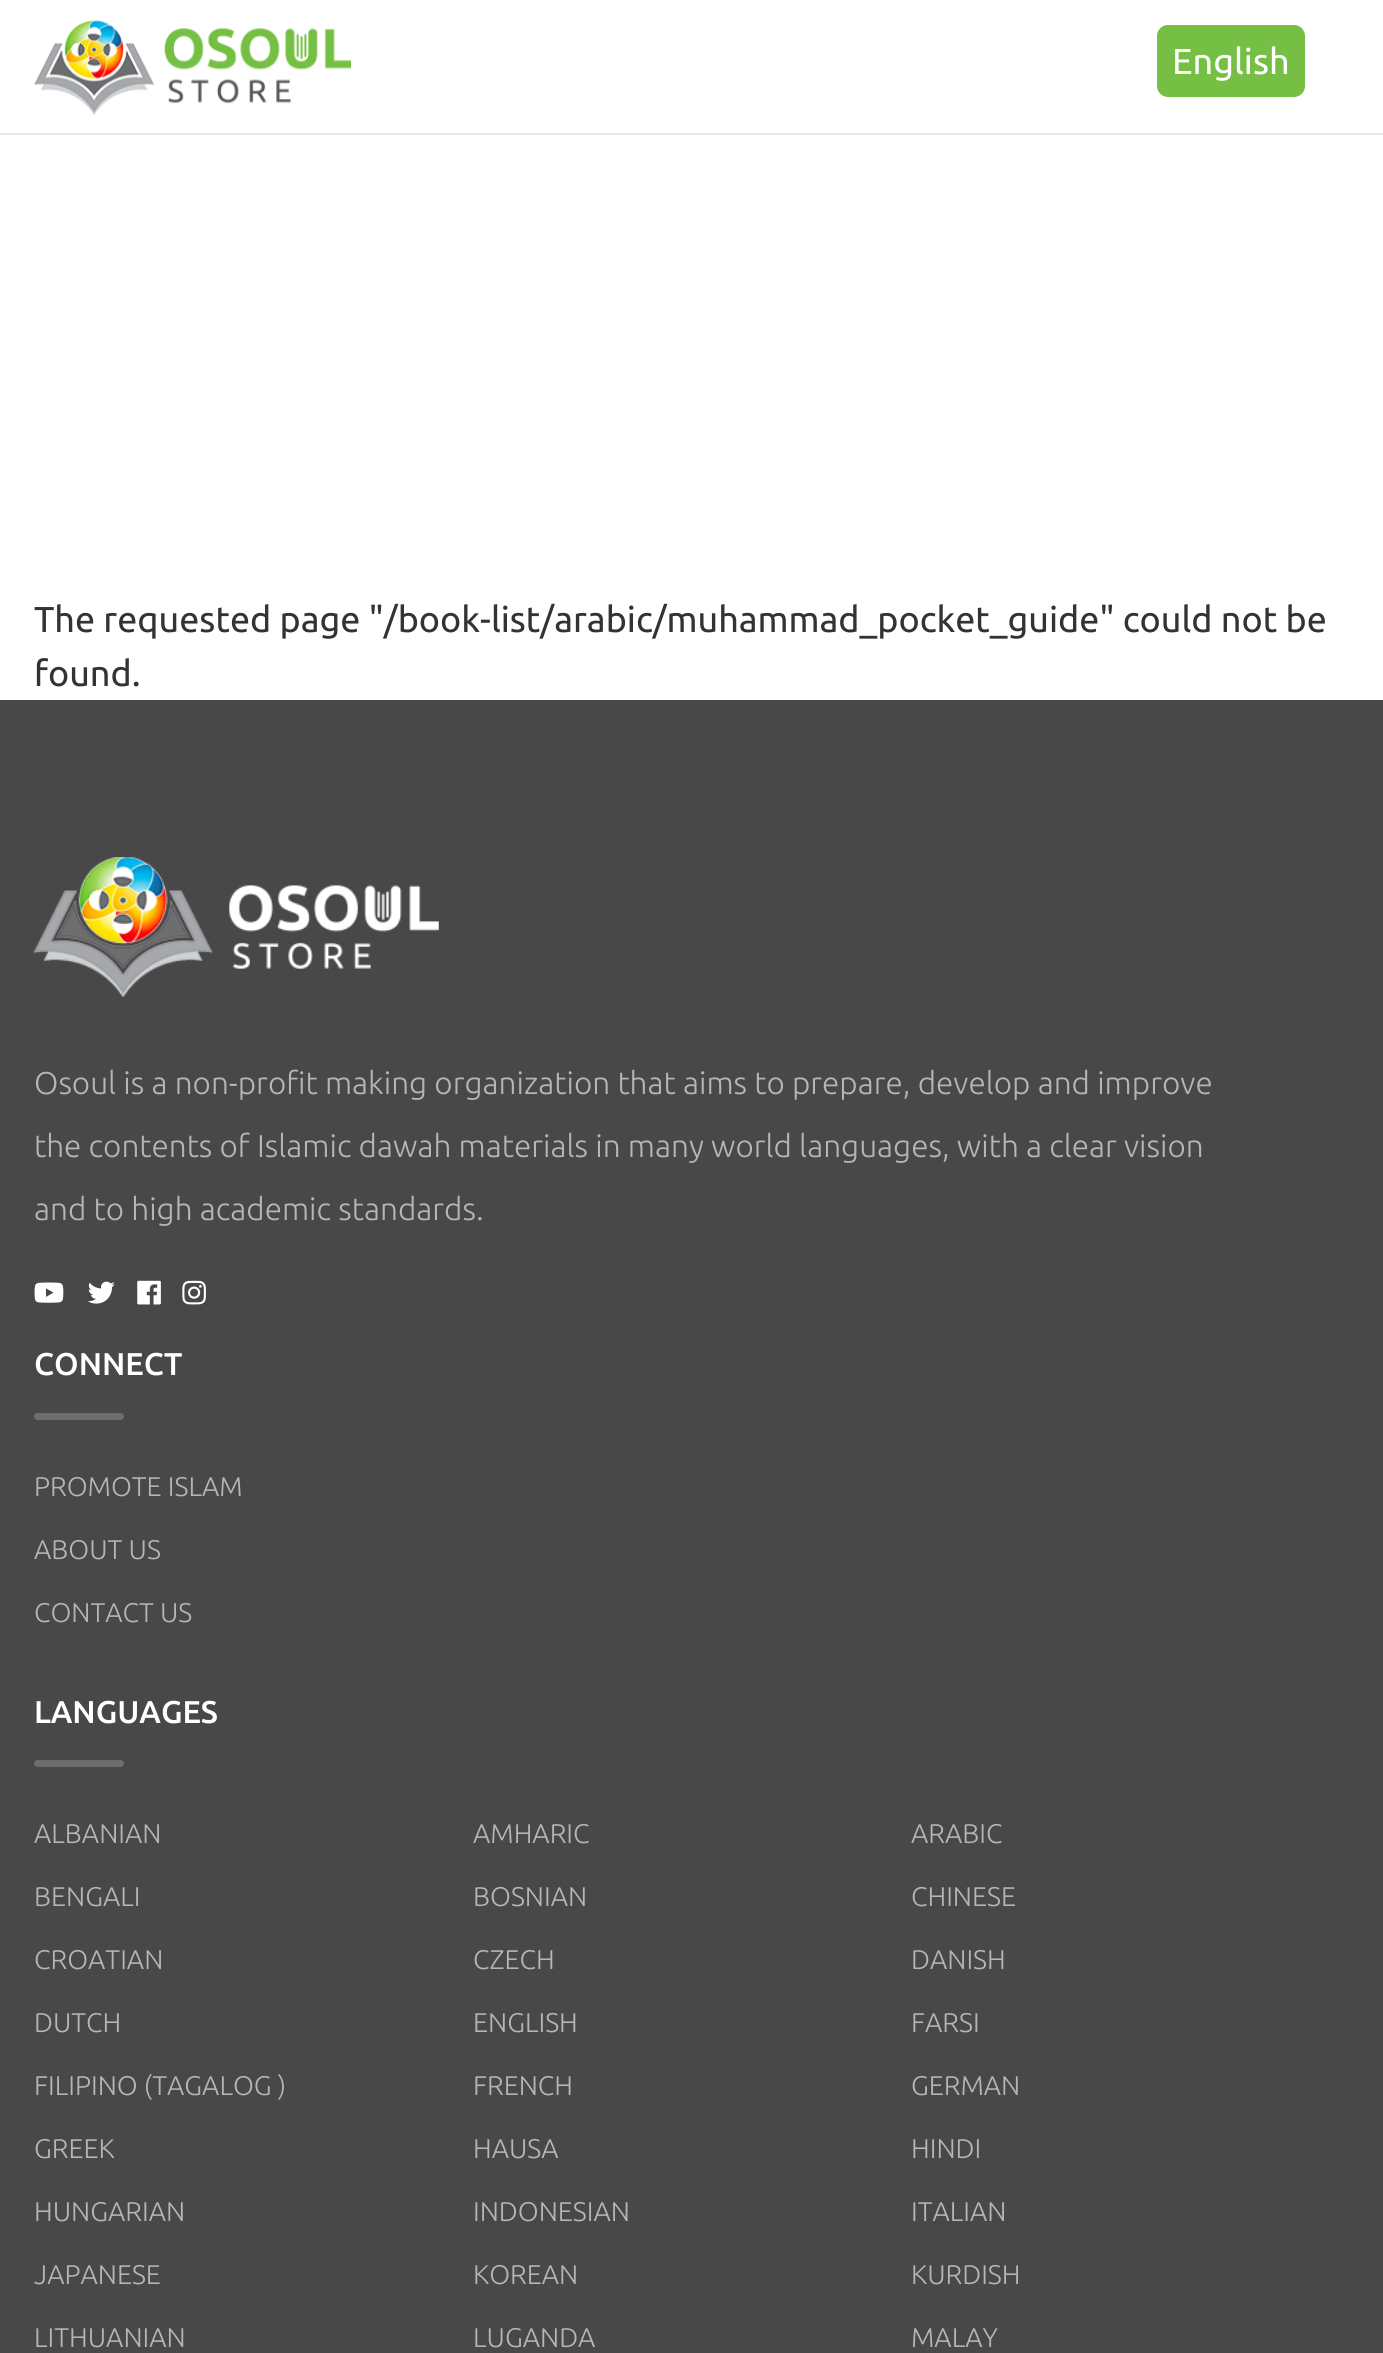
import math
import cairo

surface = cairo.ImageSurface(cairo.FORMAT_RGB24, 1383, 2353)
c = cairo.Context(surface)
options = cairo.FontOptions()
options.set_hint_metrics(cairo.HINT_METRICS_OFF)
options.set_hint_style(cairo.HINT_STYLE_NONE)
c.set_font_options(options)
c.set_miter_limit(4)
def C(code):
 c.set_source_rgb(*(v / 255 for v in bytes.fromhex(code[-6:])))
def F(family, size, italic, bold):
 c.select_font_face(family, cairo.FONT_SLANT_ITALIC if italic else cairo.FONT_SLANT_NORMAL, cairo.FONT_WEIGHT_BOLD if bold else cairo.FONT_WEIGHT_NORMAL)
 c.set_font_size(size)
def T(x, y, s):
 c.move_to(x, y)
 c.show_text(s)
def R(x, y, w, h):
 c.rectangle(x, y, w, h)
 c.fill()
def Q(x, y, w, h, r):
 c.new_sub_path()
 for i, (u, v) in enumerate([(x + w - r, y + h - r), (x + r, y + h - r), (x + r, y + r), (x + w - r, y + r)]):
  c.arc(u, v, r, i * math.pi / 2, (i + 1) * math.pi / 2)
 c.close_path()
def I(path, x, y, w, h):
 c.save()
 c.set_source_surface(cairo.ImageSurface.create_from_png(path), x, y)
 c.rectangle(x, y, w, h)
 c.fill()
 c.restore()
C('ffffff')
c.paint()
C('e7e7e7')
R(0,133,1383,2)
I('1.png',34,20,318,95)
C('75c044')
Q(1157,25,148,72,11)
c.fill()
F('Ubuntu',36,0,0)
C('ffffff')
T(1172,74,'English')
C('333333')
T(34,632,'The requested page "/book-list/arabic/muhammad_pocket_guide" could not be')
T(34,686,'found.')
C('484848')
R(0,700,1383,1653)
I('2.png',33,857,406,140)
F('Ubuntu Light',31.5,0,0)
C('b6b6b6')
T(34,1094,'Osoul is a non-profit making organization that aims to prepare, develop and improve')
T(34,1157,'the contents of Islamic dawah materials in many world languages, with a clear vision')
T(34,1220,'and to high academic standards.')
I('3.png',34,1282,30,21)
I('4.png',88,1281,27,23)
I('5.png',137,1280,24,25)
I('6.png',182,1280,24,25)
F('Ubuntu Medium',31.5,0,0)
C('ffffff')
T(34,1375,'CONNECT')
C('6d6d6d')
Q(34,1413,90,7,3.5)
c.fill()
F('Ubuntu Light',27,0,0)
C('b6b6b6')
T(34,1496,'PROMOTE ISLAM')
T(34,1559,'ABOUT US')
T(34,1622,'CONTACT US')
F('Ubuntu Medium',31.5,0,0)
C('ffffff')
T(34,1723,'LANGUAGES')
C('6d6d6d')
Q(34,1760,90,7,3.5)
c.fill()
F('Ubuntu Light',27,0,0)
C('b6b6b6')
T(34,1843,'ALBANIAN')
T(473,1843,'AMHARIC')
T(911,1843,'ARABIC')
T(34,1906,'BENGALI')
T(473,1906,'BOSNIAN')
T(911,1906,'CHINESE')
T(34,1969,'CROATIAN')
T(473,1969,'CZECH')
T(911,1969,'DANISH')
T(34,2032,'DUTCH')
T(473,2032,'ENGLISH')
T(911,2032,'FARSI')
T(34,2095,'FILIPINO (TAGALOG )')
T(473,2095,'FRENCH')
T(911,2095,'GERMAN')
T(34,2158,'GREEK')
T(473,2158,'HAUSA')
T(911,2158,'HINDI')
T(34,2221,'HUNGARIAN')
T(473,2221,'INDONESIAN')
T(911,2221,'ITALIAN')
T(34,2284,'JAPANESE')
T(473,2284,'KOREAN')
T(911,2284,'KURDISH')
T(34,2347,'LITHUANIAN')
T(473,2347,'LUGANDA')
T(911,2347,'MALAY')
surface.write_to_png('o.png')
